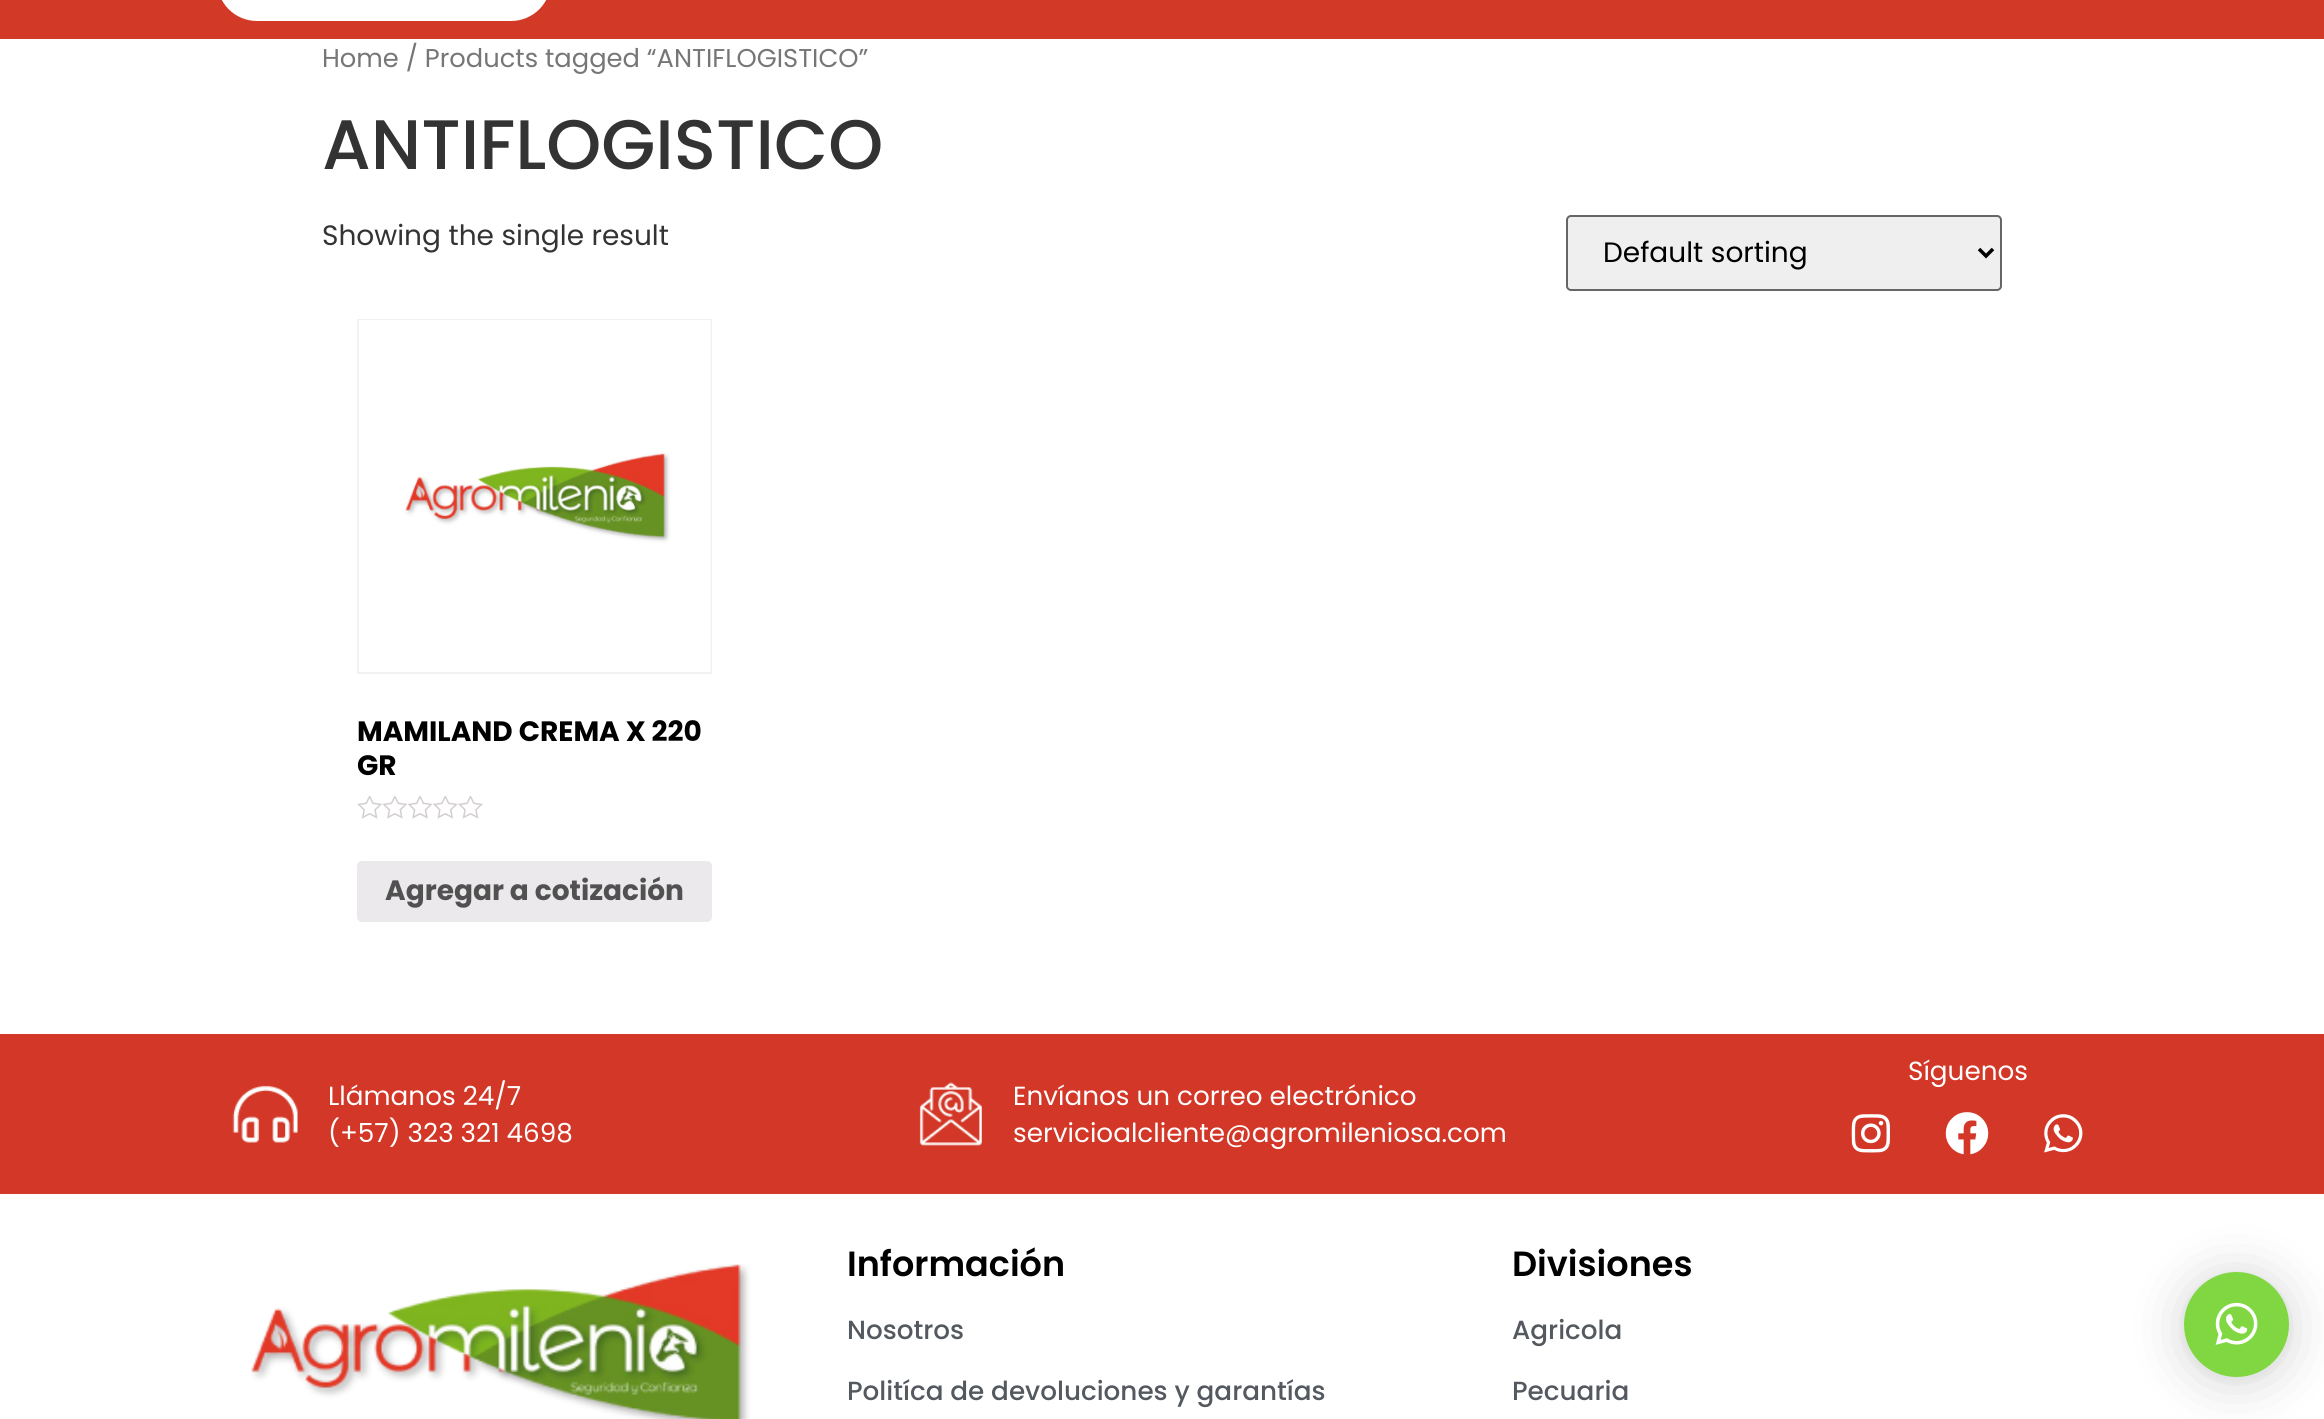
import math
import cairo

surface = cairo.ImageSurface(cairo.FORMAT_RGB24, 2324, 1419)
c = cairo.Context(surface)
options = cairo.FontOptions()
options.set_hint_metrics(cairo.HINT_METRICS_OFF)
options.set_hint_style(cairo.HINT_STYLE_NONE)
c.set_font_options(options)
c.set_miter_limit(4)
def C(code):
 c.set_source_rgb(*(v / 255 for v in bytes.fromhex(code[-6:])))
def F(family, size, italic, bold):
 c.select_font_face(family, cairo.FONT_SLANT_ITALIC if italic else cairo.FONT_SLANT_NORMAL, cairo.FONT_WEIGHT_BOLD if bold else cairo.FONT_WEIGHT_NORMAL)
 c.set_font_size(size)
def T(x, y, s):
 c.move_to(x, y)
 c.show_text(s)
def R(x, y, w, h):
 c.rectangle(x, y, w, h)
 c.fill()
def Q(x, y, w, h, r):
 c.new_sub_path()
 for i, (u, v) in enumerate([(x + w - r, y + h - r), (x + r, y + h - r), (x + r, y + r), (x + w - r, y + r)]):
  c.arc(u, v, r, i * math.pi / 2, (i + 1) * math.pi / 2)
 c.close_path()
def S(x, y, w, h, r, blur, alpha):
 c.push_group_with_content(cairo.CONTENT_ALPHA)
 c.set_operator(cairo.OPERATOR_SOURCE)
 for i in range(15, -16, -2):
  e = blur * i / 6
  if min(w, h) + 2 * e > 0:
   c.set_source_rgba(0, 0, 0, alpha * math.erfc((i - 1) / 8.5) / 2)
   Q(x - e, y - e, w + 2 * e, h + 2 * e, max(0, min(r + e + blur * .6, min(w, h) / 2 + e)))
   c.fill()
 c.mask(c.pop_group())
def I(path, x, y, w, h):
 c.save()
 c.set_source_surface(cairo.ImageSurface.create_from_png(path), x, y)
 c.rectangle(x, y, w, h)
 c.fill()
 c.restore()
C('ffffff')
c.paint()
C('d33927')
R(0,0,2324,39)
C('ffffff')
Q(217,-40,334,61,40)
c.fill()
F('Poppins',25.75,0,0)
C('767676')
T(322,67,'Home / Products tagged “ANTIFLOGISTICO”')
F('Poppins Medium',70,0,0)
C('333333')
T(322,169,'ANTIFLOGISTICO')
F('Poppins',28,0,0)
T(322,245,'Showing the single result')
C('efefef')
Q(1567,216,434,74,4)
c.fill_preserve()
C('666666')
c.stroke()
c.new_path()
c.move_to(1979,249)
c.line_to(1986,256)
c.line_to(1993,249)
C('000000')
c.set_line_width(3.5)
c.stroke()
T(1603,262,'Default sorting')
c.rectangle(358,320,353,353)
C('f2f2f2')
c.set_line_width(2)
c.stroke()
I('1.png',359,320,352,352)
F('Poppins',28,0,1)
C('000000')
T(357,741,'MAMILAND CREMA X 220')
T(357,775,'GR')
I('2.png',357,796,126,23)
C('ebe9eb')
Q(357,861,355,61,5)
c.fill()
C('515151')
T(385,900,'Agregar a cotización')
C('d23727')
R(0,1034,2324,160)
F('Poppins',26.25,0,0)
C('ffffff')
T(1908,1080,'Síguenos')
I('3.png',1851,1114,39,39)
I('4.png',1945,1112,44,43)
I('5.png',2044,1114,39,39)
I('6.png',232,1085,66,58)
T(328,1105,'Llámanos 24/7')
T(328,1142,'(+57) 323 321 4698')
I('7.png',919,1082,63,64)
T(1013,1105,'Envíanos un correo electrónico')
T(1013,1142,'servicioalcliente@agromileniosa.com')
I('8.png',251,1264,499,155)
F('Poppins SemiBold',35,0,0)
C('000000')
T(847,1276,'Información')
F('Poppins Medium',26.25,0,0)
C('54595f')
T(847,1339,'Nosotros')
T(847,1400,'Politíca de devoluciones y garantías')
F('Poppins SemiBold',35,0,0)
C('000000')
T(1512,1276,'Divisiones')
F('Poppins Medium',26.25,0,0)
C('54595f')
T(1512,1339,'Agricola')
T(1512,1400,'Pecuaria')
C('000000')
S(2184,1276,105,105,52.5,28,.16)
S(2184,1274,105,105,52.5,5,.06)
C('81d742')
c.arc(2236.5,1324.5,52.5,0,2 * math.pi)
c.fill()
I('9.png',2215,1302,43,43)
surface.write_to_png('o.png')
